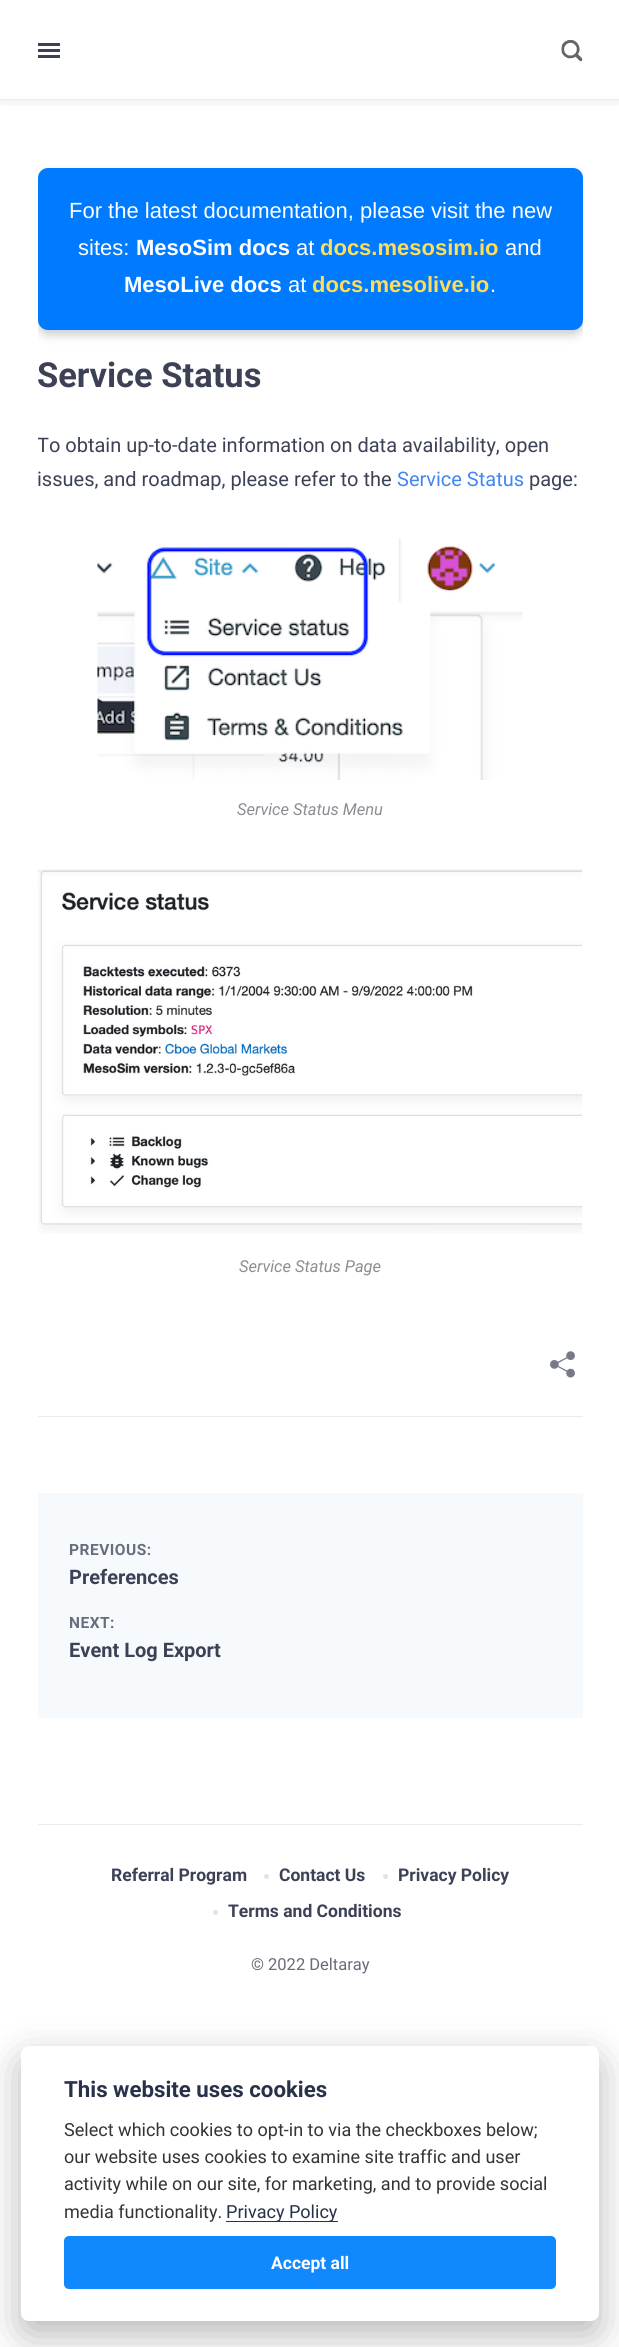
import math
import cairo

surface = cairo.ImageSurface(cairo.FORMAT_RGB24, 619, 2347)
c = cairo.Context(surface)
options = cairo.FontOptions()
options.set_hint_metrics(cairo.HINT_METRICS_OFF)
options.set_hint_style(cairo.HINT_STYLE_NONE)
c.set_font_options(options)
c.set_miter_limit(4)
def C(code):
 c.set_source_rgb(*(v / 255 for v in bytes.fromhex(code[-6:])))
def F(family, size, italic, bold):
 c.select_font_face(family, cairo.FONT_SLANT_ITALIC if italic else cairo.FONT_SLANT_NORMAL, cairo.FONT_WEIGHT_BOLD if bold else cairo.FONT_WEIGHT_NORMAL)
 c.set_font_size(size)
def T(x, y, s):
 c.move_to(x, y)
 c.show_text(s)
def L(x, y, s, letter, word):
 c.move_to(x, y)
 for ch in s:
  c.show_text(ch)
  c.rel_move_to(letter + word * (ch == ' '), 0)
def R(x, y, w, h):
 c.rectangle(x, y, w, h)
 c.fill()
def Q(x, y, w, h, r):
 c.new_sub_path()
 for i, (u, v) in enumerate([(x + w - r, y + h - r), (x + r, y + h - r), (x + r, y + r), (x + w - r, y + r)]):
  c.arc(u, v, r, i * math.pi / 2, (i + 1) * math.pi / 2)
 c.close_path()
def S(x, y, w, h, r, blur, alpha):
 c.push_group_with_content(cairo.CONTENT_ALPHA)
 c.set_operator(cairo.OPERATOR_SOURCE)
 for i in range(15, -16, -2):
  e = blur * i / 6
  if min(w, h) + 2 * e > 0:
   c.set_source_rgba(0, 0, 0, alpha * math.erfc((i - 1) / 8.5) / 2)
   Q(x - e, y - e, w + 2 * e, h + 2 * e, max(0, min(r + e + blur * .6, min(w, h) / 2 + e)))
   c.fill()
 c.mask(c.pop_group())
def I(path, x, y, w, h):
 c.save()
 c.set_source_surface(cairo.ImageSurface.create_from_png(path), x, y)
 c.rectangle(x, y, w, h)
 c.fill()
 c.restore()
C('ffffff')
c.paint()
c.save()
c.rectangle(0,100,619,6)
c.clip()
C('000000')
S(0,4,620,100,0,5,.06)
c.restore()
C('ebebee')
R(0,99,619,1)
C('3c4156')
R(38,49,22,3)
R(38,43,22,3)
R(38,55,22,3)
I('1.png',561,40,22,21)
c.save()
c.rectangle(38,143,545,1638)
c.clip()
C('000000')
S(38,173,545,162,10,5,.2)
c.restore()
C('007bff')
Q(38,168,545,162,10)
c.fill()
F('Liberation Sans',22,0,0)
C('ffffff')
T(69,218,'For the latest documentation, please visit the new')
T(78,255,'sites:')
F('Liberation Sans',22,0,1)
T(136,255,'MesoSim docs')
F('Liberation Sans',22,0,0)
T(296,255,'at')
F('Liberation Sans',22,0,1)
C('ffdd57')
T(320,255,'docs.mesosim.io')
F('Liberation Sans',22,0,0)
C('ffffff')
T(505,255,'and')
F('Liberation Sans',22,0,1)
T(124,292,'MesoLive docs')
F('Liberation Sans',22,0,0)
T(288,292,'at')
F('Liberation Sans',22,0,1)
C('ffdd57')
T(312,292,'docs.mesolive.io')
F('Liberation Sans',22,0,0)
C('ffffff')
T(490,292,'.')
F('Roboto',34.5,0,1)
C('3c4156')
T(37,387,'Service Status')
c.save()
c.rectangle(38,396,545,885)
c.clip()
F('Roboto',20,0,0)
T(37,452,'To obtain up-to-date information on data availability, open')
c.restore()
F('Roboto',20,0,0)
T(37,486,'issues, and roadmap, please refer to the')
C('4285f4')
T(397,486,'Service Status')
C('3c4156')
T(529,486,'page:')
I('2.png',97,538,426,242)
F('Roboto',16.5,1,0)
C('8d8d94')
T(237,815,'Service Status Menu')
I('3.png',37,869,546,365)
T(239,1272,'Service Status Page')
I('4.png',550,1351,25,27)
C('ebebee')
R(38,1416,545,1)
C('f7fafc')
R(38,1493,545,225)
F('Roboto',15.5,0,1)
C('696c7b')
L(69,1555,'PREVIOUS:',.5,0)
F('Roboto',20,0,1)
C('3c4156')
T(69,1584,'Preferences')
F('Roboto',15.5,0,1)
C('696c7b')
L(69,1628,'NEXT:',.5,0)
F('Roboto',20,0,1)
C('3c4156')
T(69,1657,'Event Log Export')
C('ebebee')
R(38,1824,545,1)
F('Roboto',17.5,0,1)
C('3c4156')
T(111,1881,'Referral Program')
C('e3e3e3')
c.new_path()
c.arc(266.5,1876.5,2.5,0,2 * math.pi)
c.fill()
C('3c4156')
T(279,1881,'Contact Us')
C('e3e3e3')
c.new_path()
c.arc(385.5,1876.5,2.5,0,2 * math.pi)
c.fill()
C('3c4156')
T(398,1881,'Privacy Policy')
C('e3e3e3')
c.new_path()
c.arc(215.5,1912.5,2.5,0,2 * math.pi)
c.fill()
C('3c4156')
T(228,1917,'Terms and Conditions')
F('Roboto',16.5,0,0)
C('696c7b')
T(251,1970,'© 2022 Deltaray')
C('020203')
S(21,2060,578,275,8,20,.28)
C('ffffff')
Q(21,2046,578,275,8)
c.fill()
F('Roboto',22.25,0,1)
C('283149')
T(64,2097,'This website uses cookies')
F('Roboto',18.05,0,0)
C('343435')
T(64,2136,'Select which cookies to opt-in to via the checkboxes below;')
T(64,2163,'our website uses cookies to examine site traffic and user')
T(64,2190,'activity while on our site, for marketing, and to provide social')
T(64,2218,'media functionality.')
C('283149')
R(226,2221,112,1)
T(226,2218,'Privacy Policy')
C('1089ff')
Q(64,2236,492,53,5)
c.fill()
F('Roboto',17.5,0,1)
C('ffffff')
T(271,2269,'Accept all')
surface.write_to_png('o.png')
